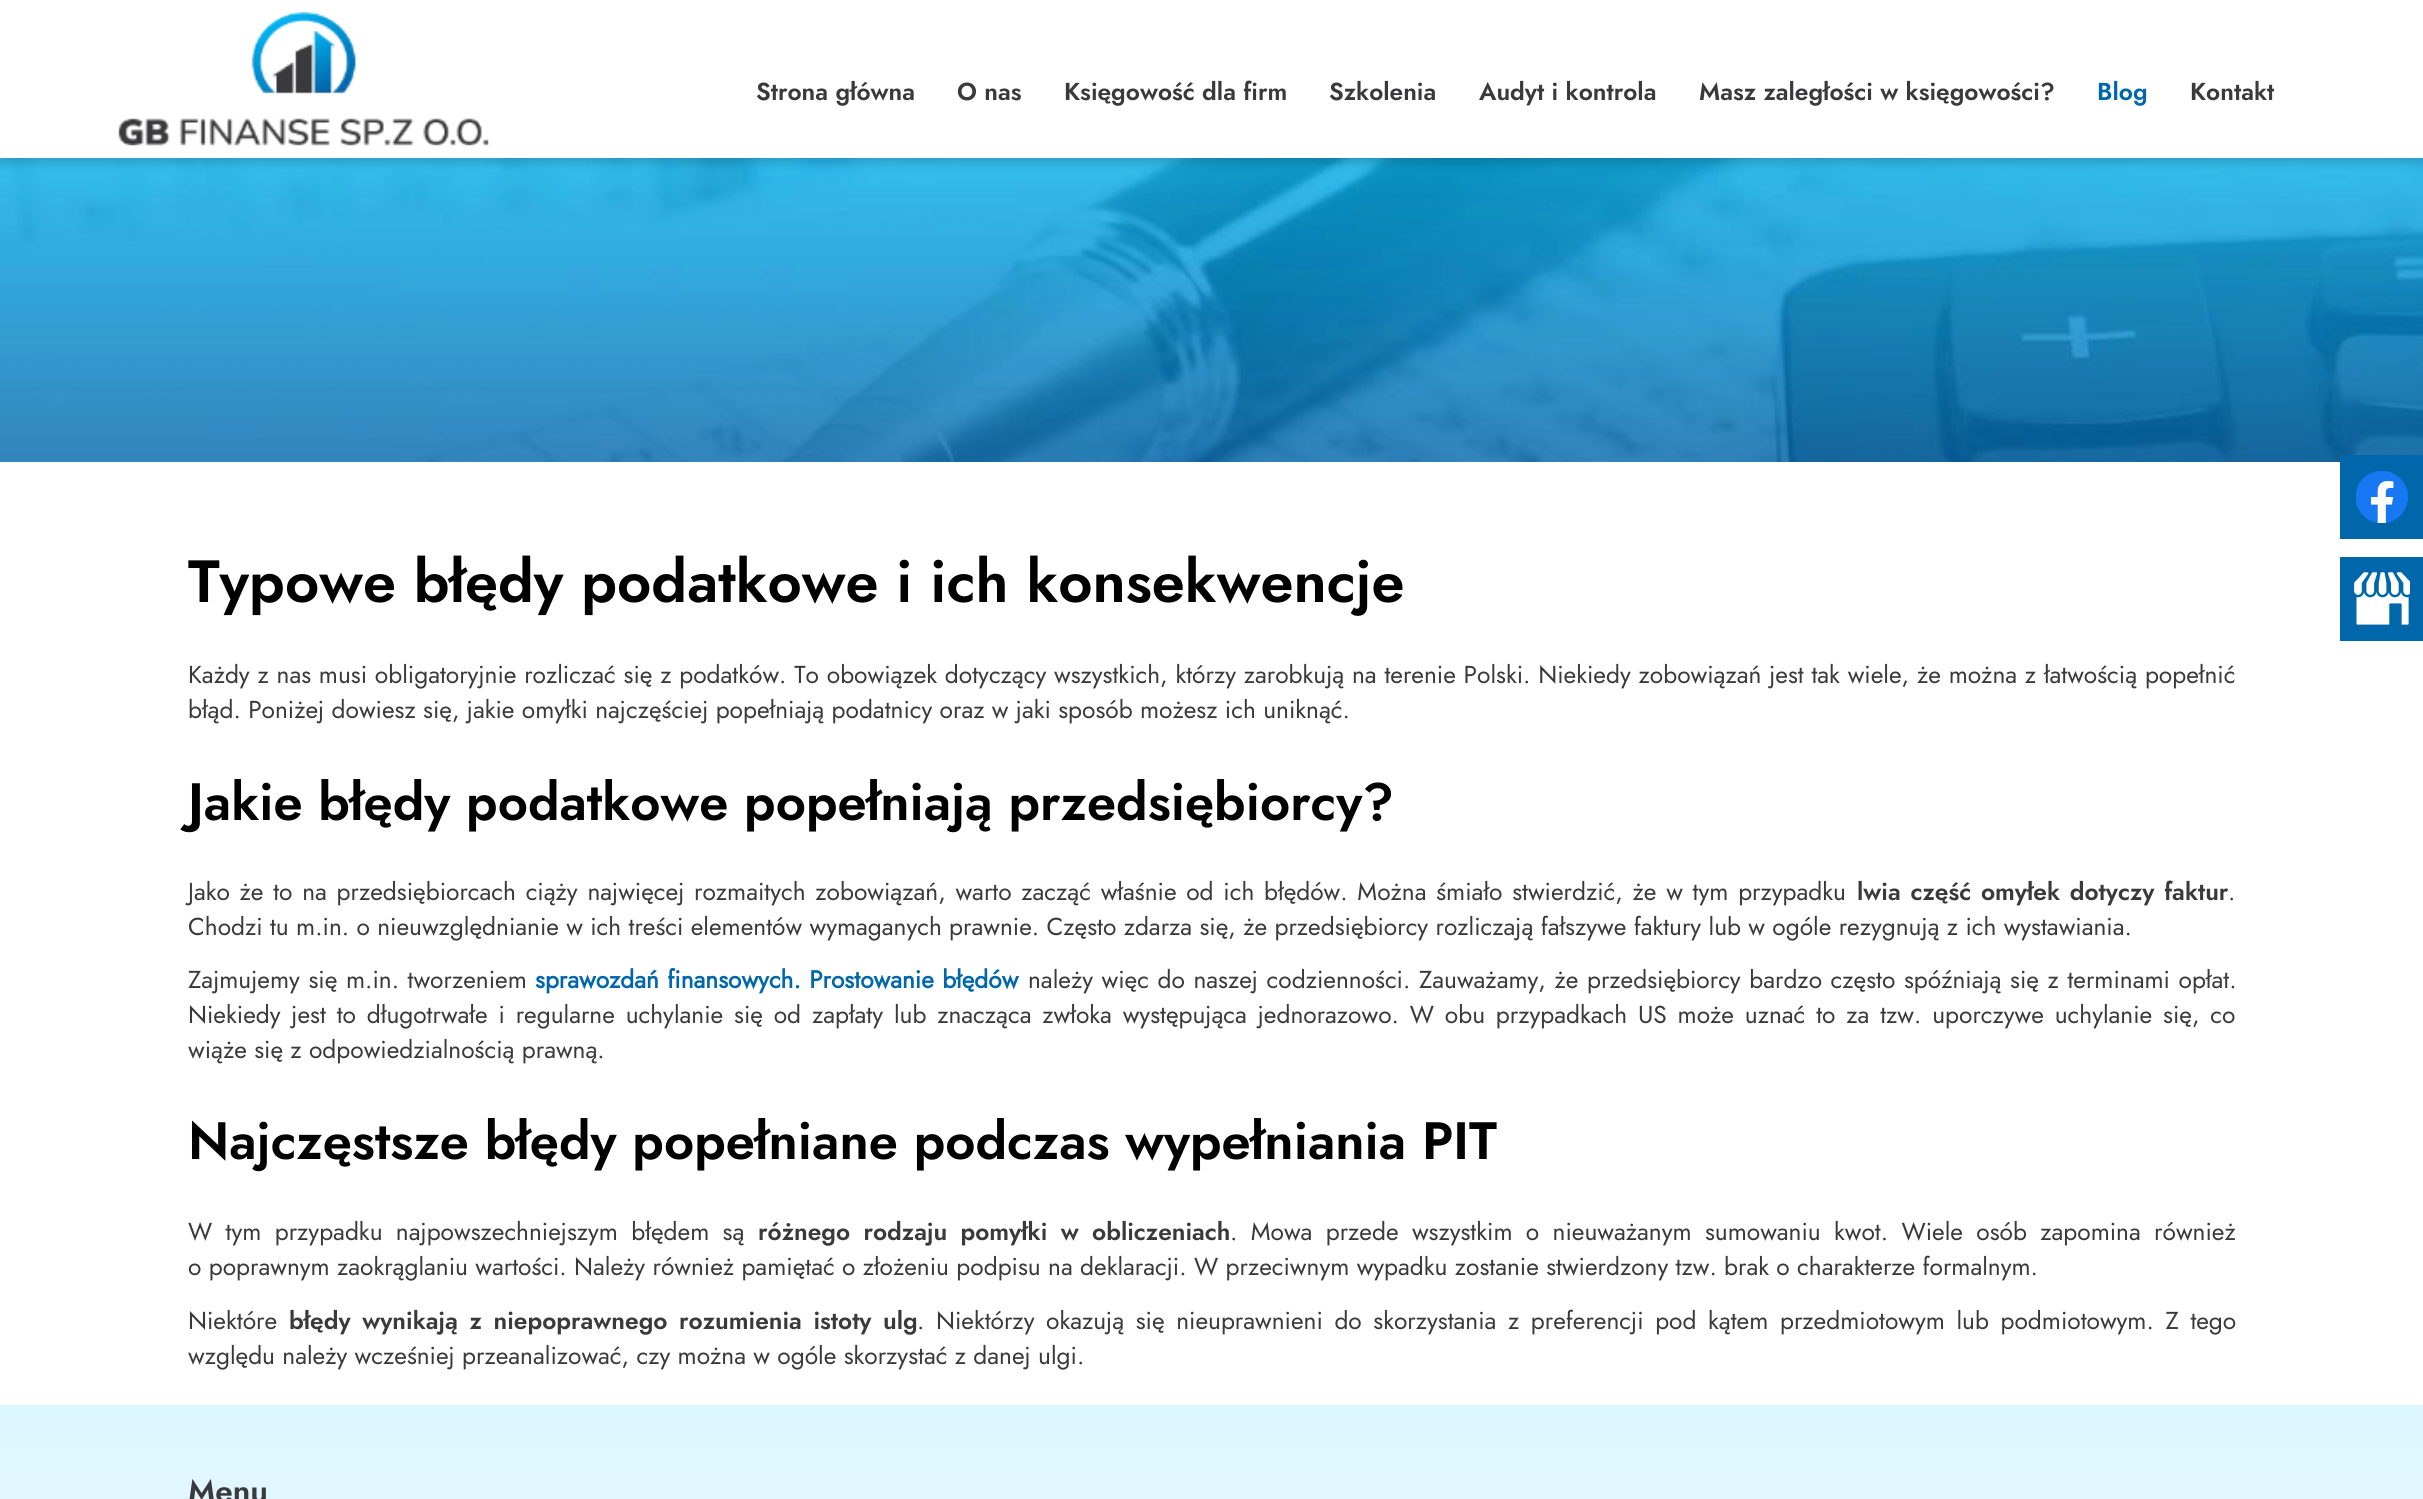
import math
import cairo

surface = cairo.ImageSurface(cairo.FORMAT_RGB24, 2423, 1499)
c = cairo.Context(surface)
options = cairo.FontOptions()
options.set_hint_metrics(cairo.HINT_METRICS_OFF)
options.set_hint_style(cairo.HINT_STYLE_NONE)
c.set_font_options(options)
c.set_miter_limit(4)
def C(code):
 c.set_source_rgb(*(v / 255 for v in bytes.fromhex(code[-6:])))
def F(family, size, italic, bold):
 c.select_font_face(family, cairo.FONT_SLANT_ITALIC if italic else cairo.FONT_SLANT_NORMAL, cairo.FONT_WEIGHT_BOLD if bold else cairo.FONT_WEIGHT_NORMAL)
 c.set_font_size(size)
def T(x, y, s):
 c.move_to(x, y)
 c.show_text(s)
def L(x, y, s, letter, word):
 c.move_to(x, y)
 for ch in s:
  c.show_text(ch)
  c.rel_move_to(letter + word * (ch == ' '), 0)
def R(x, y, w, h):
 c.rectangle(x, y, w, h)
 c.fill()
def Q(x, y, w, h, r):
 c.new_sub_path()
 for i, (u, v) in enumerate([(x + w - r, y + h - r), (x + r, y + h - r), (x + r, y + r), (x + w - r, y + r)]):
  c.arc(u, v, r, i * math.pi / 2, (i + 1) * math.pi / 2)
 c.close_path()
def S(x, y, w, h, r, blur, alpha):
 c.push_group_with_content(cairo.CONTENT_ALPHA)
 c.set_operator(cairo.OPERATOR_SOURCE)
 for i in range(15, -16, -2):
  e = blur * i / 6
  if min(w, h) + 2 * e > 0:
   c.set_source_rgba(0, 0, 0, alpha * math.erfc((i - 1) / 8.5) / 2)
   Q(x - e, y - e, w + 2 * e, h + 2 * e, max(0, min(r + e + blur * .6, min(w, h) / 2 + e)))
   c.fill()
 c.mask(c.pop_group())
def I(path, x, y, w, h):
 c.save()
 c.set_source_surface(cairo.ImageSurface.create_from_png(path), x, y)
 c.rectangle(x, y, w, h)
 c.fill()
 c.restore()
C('ffffff')
c.paint()
I('2.png',0,158,2423,304)
C('000000')
S(0,5,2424,158,0,5,.16)
C('ffffff')
R(0,0,2423,158)
I('1.png',118,12,371,134)
F('Jost SemiBold',24.5,0,0)
C('3a3a3c')
T(756,100,'Strona główna')
T(957,100,'O nas')
T(1064,100,'Księgowość dla firm')
T(1329,100,'Szkolenia')
T(1479,100,'Audyt i kontrola')
T(1699,100,'Masz zaległości w księgowości?')
C('0067ab')
T(2097,100,'Blog')
C('3a3a3c')
T(2190,100,'Kontakt')
F('Jost SemiBold',59.5,0,0)
C('000000')
T(188,602,'Typowe błędy podatkowe i ich konsekwencje')
F('Jost',24.5,0,0)
C('3a3a3c')
L(188,683,'Każdy z nas musi obligatoryjnie rozliczać się z podatków. To obowiązek dotyczący wszystkich, którzy zarobkują na terenie Polski. Niekiedy zobowiązań jest tak wiele, że można z łatwością popełnić',0,.45)
T(188,718,'błąd. Poniżej dowiesz się, jakie omyłki najczęściej popełniają podatnicy oraz w jaki sposób możesz ich uniknąć.')
F('Jost SemiBold',52.5,0,0)
C('000000')
T(188,820,'Jakie błędy podatkowe popełniają przedsiębiorcy?')
F('Jost',24.5,0,0)
C('3a3a3c')
L(188,900,'Jako że to na przedsiębiorcach ciąży najwięcej rozmaitych zobowiązań, warto zacząć właśnie od ich błędów. Można śmiało stwierdzić, że w tym przypadku',0,2.4)
F('Jost SemiBold',24.5,0,0)
L(1857,900,'lwia część omyłek dotyczy faktur',0,2.4)
F('Jost',24.5,0,0)
T(2228,900,'.')
T(188,935,'Chodzi tu m.in. o nieuwzględnianie w ich treści elementów wymaganych prawnie. Często zdarza się, że przedsiębiorcy rozliczają fałszywe faktury lub w ogóle rezygnują z ich wystawiania.')
L(188,988,'Zajmujemy się m.in. tworzeniem',0,1.25)
F('Jost',24.5,0,1)
C('0067ab')
L(535,988,'sprawozdań finansowych. Prostowanie błędów',0,1)
F('Jost',24.5,0,0)
C('3a3a3c')
L(1028,988,'należy więc do naszej codzienności. Zauważamy, że przedsiębiorcy bardzo często spóźniają się z terminami opłat.',0,1.25)
L(188,1023,'Niekiedy jest to długotrwałe i regularne uchylanie się od zapłaty lub znacząca zwłoka występująca jednorazowo. W obu przypadkach US może uznać to za tzw. uporczywe uchylanie się, co',0,3.5)
T(188,1058,'wiąże się z odpowiedzialnością prawną.')
F('Jost SemiBold',52.5,0,0)
C('000000')
T(188,1159,'Najczęstsze błędy popełniane podczas wypełniania PIT')
F('Jost',24.5,0,0)
C('3a3a3c')
L(188,1240,'W tym przypadku najpowszechniejszym błędem są',0,6)
F('Jost SemiBold',24.5,0,0)
L(758,1240,'różnego rodzaju pomyłki w obliczeniach',0,6)
F('Jost',24.5,0,0)
L(1230,1240,'. Mowa przede wszystkim o nieuważanym sumowaniu kwot. Wiele osób zapomina również',0,6)
T(188,1275,'o poprawnym zaokrąglaniu wartości. Należy również pamiętać o złożeniu podpisu na deklaracji. W przeciwnym wypadku zostanie stwierdzony tzw. brak o charakterze formalnym.')
T(188,1329,'Niektóre')
F('Jost SemiBold',24.5,0,0)
L(289,1329,'błędy wynikają z niepoprawnego rozumienia istoty ulg',0,4.25)
F('Jost',24.5,0,0)
L(917,1329,'. Niektórzy okazują się nieuprawnieni do skorzystania z preferencji pod kątem przedmiotowym lub podmiotowym. Z tego',0,4.25)
T(188,1364,'względu należy wcześniej przeanalizować, czy można w ogóle skorzystać z danej ulgi.')
C('0067ab')
R(2340,455,83,84)
I('3.png',2356,471,52,52)
R(2340,557,83,84)
I('4.png',2354,572,56,53)
gradient = cairo.LinearGradient(1212,1405,1212,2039)
gradient.add_color_stop_rgba(0,0.863,0.965,1,1)
gradient.add_color_stop_rgba(1,1,1,1,1)
c.set_source(gradient)
R(0,1405,2423,94)
F('Jost SemiBold',31.5,0,0)
C('3a3a3c')
T(188,1502,'Menu')
surface.write_to_png('o.png')
